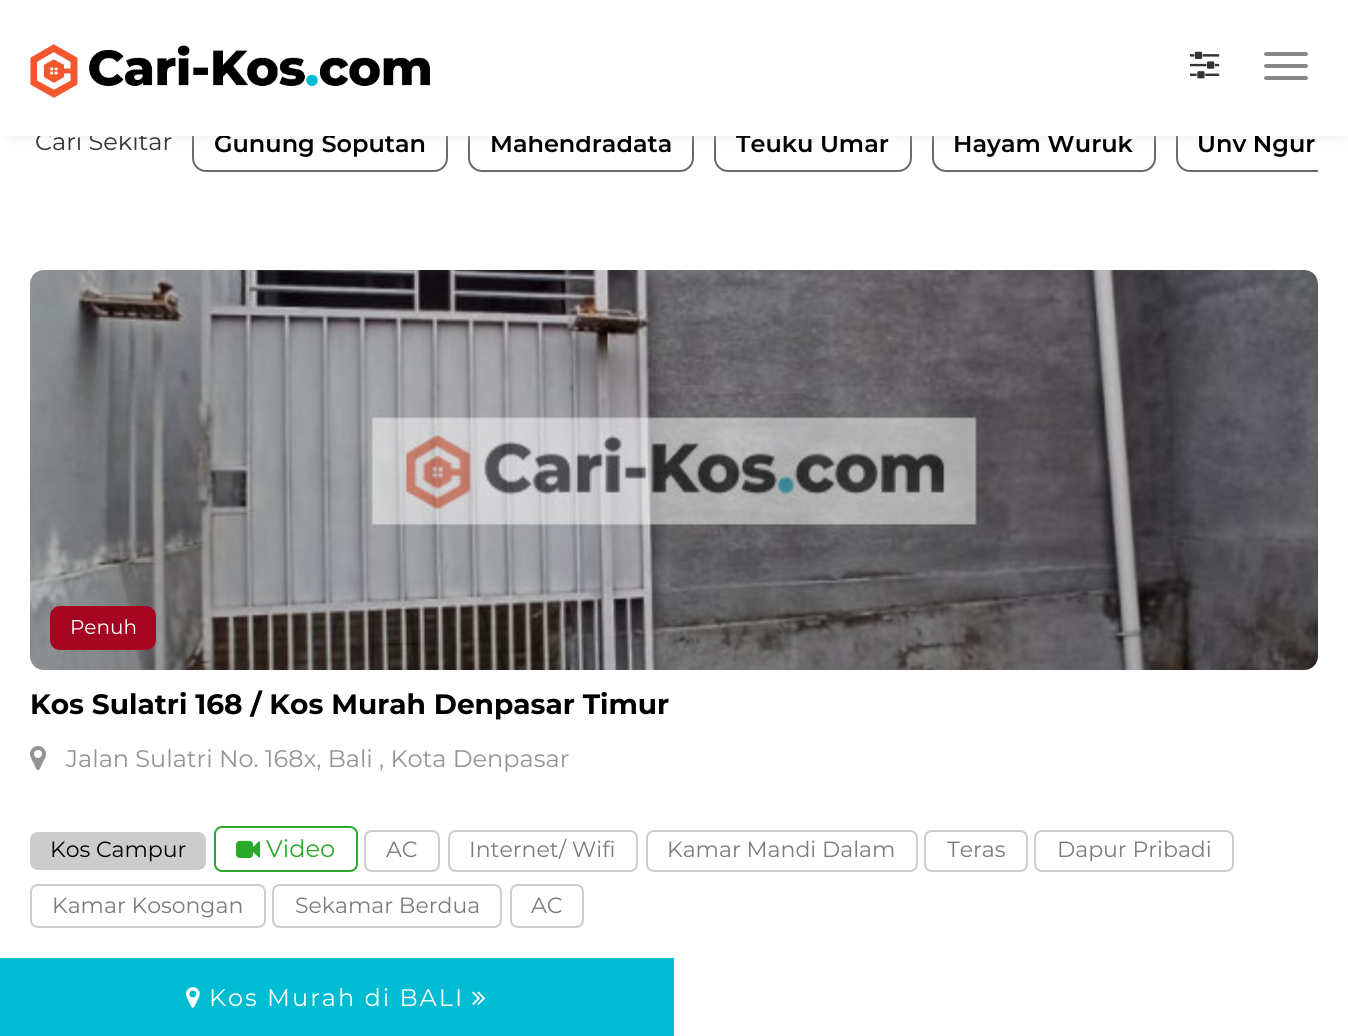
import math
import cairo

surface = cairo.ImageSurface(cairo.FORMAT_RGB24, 1348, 1036)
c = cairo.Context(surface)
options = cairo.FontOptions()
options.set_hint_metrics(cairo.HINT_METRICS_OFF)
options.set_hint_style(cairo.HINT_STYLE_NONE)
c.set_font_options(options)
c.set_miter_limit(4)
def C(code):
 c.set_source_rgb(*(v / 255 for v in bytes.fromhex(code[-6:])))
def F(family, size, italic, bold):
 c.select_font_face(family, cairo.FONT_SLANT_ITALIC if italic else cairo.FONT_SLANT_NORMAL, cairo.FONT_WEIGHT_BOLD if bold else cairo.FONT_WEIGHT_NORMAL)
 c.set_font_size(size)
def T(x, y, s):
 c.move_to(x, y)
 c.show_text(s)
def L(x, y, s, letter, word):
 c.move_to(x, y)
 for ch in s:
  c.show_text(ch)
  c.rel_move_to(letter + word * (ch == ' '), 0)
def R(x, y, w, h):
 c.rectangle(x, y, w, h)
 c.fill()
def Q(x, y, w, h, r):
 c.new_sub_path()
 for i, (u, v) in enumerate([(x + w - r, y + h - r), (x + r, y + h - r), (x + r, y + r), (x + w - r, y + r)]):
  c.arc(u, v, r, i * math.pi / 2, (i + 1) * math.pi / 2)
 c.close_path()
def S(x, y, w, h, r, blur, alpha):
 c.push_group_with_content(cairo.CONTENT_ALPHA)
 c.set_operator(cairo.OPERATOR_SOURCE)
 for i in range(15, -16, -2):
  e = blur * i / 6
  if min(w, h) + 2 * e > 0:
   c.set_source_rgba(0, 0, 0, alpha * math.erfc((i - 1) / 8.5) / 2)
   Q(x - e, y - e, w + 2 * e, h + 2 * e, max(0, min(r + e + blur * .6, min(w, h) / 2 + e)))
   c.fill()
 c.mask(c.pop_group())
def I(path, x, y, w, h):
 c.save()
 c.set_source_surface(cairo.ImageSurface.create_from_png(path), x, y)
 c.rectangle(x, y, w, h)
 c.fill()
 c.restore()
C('ffffff')
c.paint()
Q(193,115,254,56,13)
C('6a6969')
c.stroke()
Q(469,115,224,56,13)
c.stroke()
Q(715,115,196,56,13)
c.stroke()
Q(933,115,222,56,13)
c.stroke()
c.save()
c.rectangle(30,94,1288,120)
c.clip()
Q(1177,115,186,56,13)
c.stroke()
c.restore()
C('cccccc')
S(14,12,1328,116,0,10,1)
F('Montserrat',24,0,0)
C('333333')
T(35,150,'Cari Sekitar')
F('Montserrat SemiBold',24,0,0)
C('000000')
T(214,152,'Gunung Soputan')
T(490,152,'Mahendradata')
T(736,152,'Teuku Umar')
T(953,152,'Hayam Wuruk')
T(1197,152,'Unv Ngur')
C('ffffff')
R(0,0,1348,136)
I('1.png',30,44,400,54)
I('2.png',1190,51,30,28)
C('888888')
Q(1264,52,44,4,2)
c.fill()
Q(1264,64,44,4,2)
c.fill()
Q(1264,76,44,4,2)
c.fill()
I('3.png',30,270,1288,400)
C('a60522')
Q(50,606,106,44,10)
c.fill()
F('Montserrat',20,0,0)
C('ffffff')
T(70,634,'Penuh')
F('Montserrat',28,0,1)
C('000000')
T(30,714,'Kos Sulatri 168 / Kos Murah Denpasar Timur')
I('4.png',30,746,16,24)
F('Montserrat',24,0,0)
C('939393')
T(66,767,'Jalan Sulatri No. 168x, Bali , Kota Denpasar')
C('cccccc')
Q(30,832,176,38,8)
c.fill()
F('Montserrat',22,0,0)
C('000000')
T(50,857,'Kos Campur')
Q(215,827,142,44,7)
C('2aa82a')
c.stroke()
I('5.png',236,840,24,18)
F('Montserrat',24,0,0)
T(266,857,'Video')
Q(365,831,74,40,7)
C('cccccc')
c.stroke()
F('Montserrat',22,0,0)
C('7b7b7b')
T(386,857,'AC')
Q(449,831,188,40,7)
C('cccccc')
c.stroke()
C('7b7b7b')
T(469,857,'Internet/ Wifi')
Q(647,831,270,40,7)
C('cccccc')
c.stroke()
C('7b7b7b')
T(667,857,'Kamar Mandi Dalam')
Q(925,831,102,40,7)
C('cccccc')
c.stroke()
C('7b7b7b')
T(947,857,'Teras')
Q(1035,831,198,40,7)
C('cccccc')
c.stroke()
C('7b7b7b')
T(1057,857,'Dapur Pribadi')
Q(31,885,234,42,7)
C('cccccc')
c.stroke()
C('7b7b7b')
T(52,913,'Kamar Kosongan')
Q(273,885,228,42,7)
C('cccccc')
c.stroke()
C('7b7b7b')
T(295,913,'Sekamar Berdua')
Q(511,885,72,42,7)
C('cccccc')
c.stroke()
C('7b7b7b')
T(531,913,'AC')
C('00bcd2')
R(0,958,674,78)
I('6.png',186,987,14,21)
F('Montserrat',24,0,0)
C('ffffff')
L(209,1006,'Kos Murah di BALI',2,0)
I('7.png',472,991,14,14)
surface.write_to_png('o.png')
